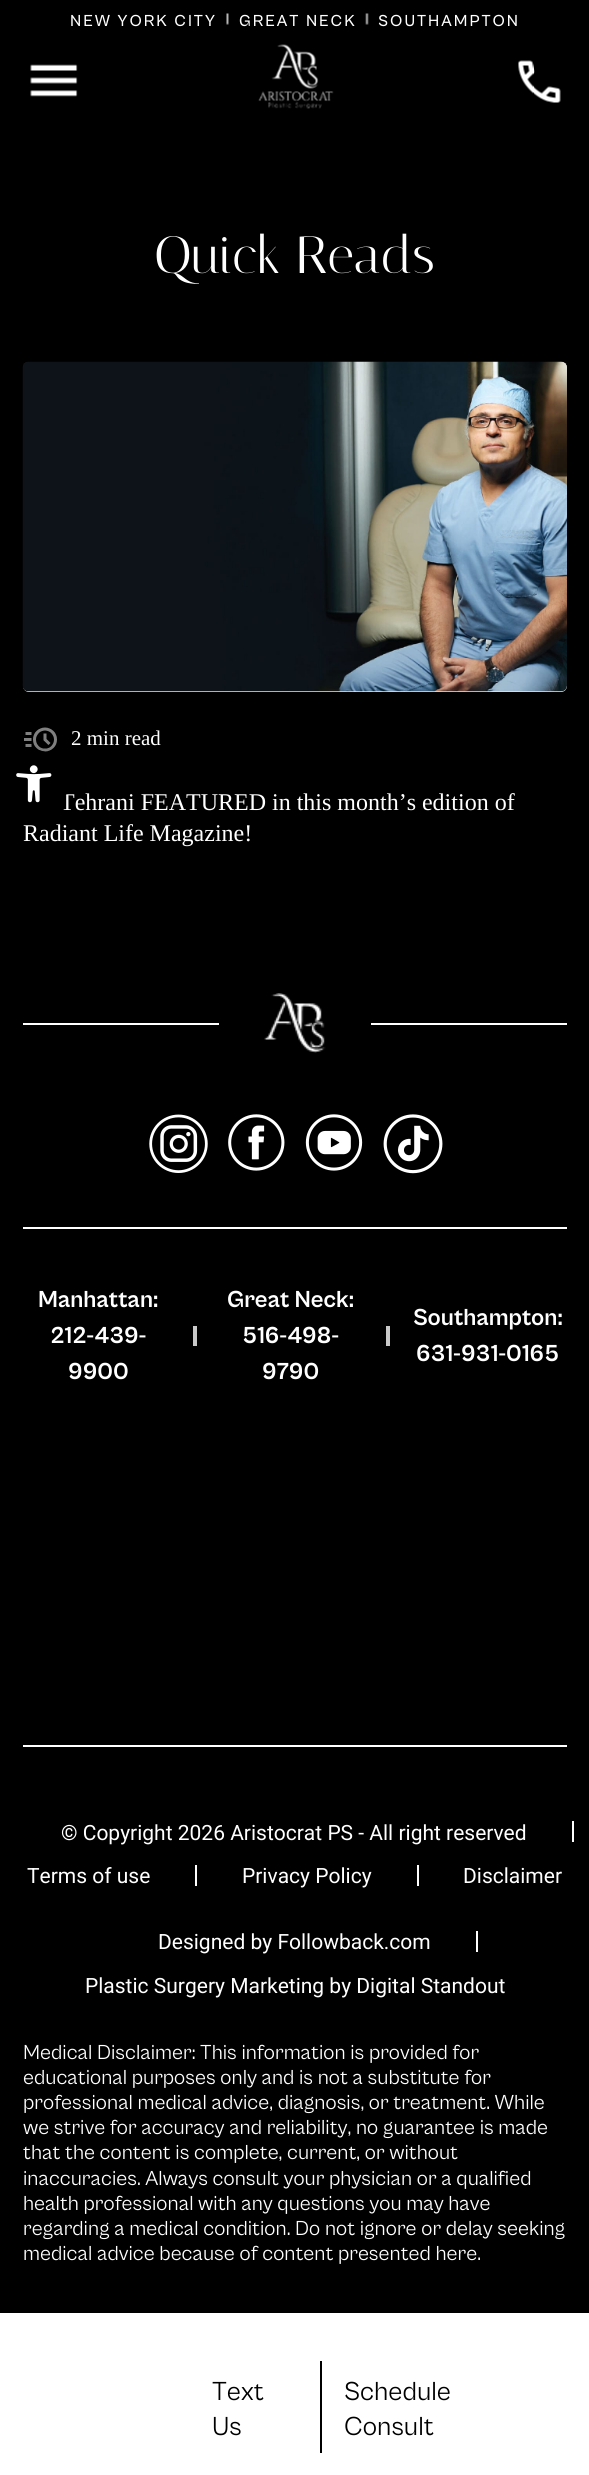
import math
import cairo

surface = cairo.ImageSurface(cairo.FORMAT_RGB24, 589, 2475)
c = cairo.Context(surface)
options = cairo.FontOptions()
options.set_hint_metrics(cairo.HINT_METRICS_OFF)
options.set_hint_style(cairo.HINT_STYLE_NONE)
c.set_font_options(options)
c.set_miter_limit(4)
def C(code):
 c.set_source_rgb(*(v / 255 for v in bytes.fromhex(code[-6:])))
def F(family, size, italic, bold):
 c.select_font_face(family, cairo.FONT_SLANT_ITALIC if italic else cairo.FONT_SLANT_NORMAL, cairo.FONT_WEIGHT_BOLD if bold else cairo.FONT_WEIGHT_NORMAL)
 c.set_font_size(size)
def T(x, y, s):
 c.move_to(x, y)
 c.show_text(s)
def L(x, y, s, letter, word):
 c.move_to(x, y)
 for ch in s:
  c.show_text(ch)
  c.rel_move_to(letter + word * (ch == ' '), 0)
def R(x, y, w, h):
 c.rectangle(x, y, w, h)
 c.fill()
def Q(x, y, w, h, r):
 c.new_sub_path()
 for i, (u, v) in enumerate([(x + w - r, y + h - r), (x + r, y + h - r), (x + r, y + r), (x + w - r, y + r)]):
  c.arc(u, v, r, i * math.pi / 2, (i + 1) * math.pi / 2)
 c.close_path()
def S(x, y, w, h, r, blur, alpha):
 c.push_group_with_content(cairo.CONTENT_ALPHA)
 c.set_operator(cairo.OPERATOR_SOURCE)
 for i in range(15, -16, -2):
  e = blur * i / 6
  if min(w, h) + 2 * e > 0:
   c.set_source_rgba(0, 0, 0, alpha * math.erfc((i - 1) / 8.5) / 2)
   Q(x - e, y - e, w + 2 * e, h + 2 * e, max(0, min(r + e + blur * .6, min(w, h) / 2 + e)))
   c.fill()
 c.mask(c.pop_group())
def I(path, x, y, w, h):
 c.save()
 c.set_source_surface(cairo.ImageSurface.create_from_png(path), x, y)
 c.rectangle(x, y, w, h)
 c.fill()
 c.restore()
C('ffffff')
c.paint()
C('000000')
R(0,0,589,2313)
F('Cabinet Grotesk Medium',16.5,0,0)
C('ffffff')
L(70,26,'NEW YORK CITY',2,0)
I('1.png',226,13,3,12)
L(239,26,'GREAT NECK',2,0)
I('2.png',365,13,4,12)
L(378,26,'SOUTHAMPTON',2,0)
I('3.png',30,64,48,33)
I('4.png',258,44,76,65)
I('5.png',518,60,43,43)
F('Italiana',52.5,0,0)
T(154,273,'Quick Reads')
C('e8e8e8')
Q(23,362,544,330,6)
c.fill()
I('6.png',22,361,545,331)
I('7.png',24,727,33,25)
F('Liberation Serif',21,0,0)
C('ffffff')
T(71,745,'2 min read')
F('Liberation Serif',24,0,0)
T(60,810,'Tehrani FEATURED in this month’s edition of')
T(23,841,'Radiant Life Magazine!')
C('000000')
S(0,750,68,68,34,7.5,.1)
C('000000')
c.arc(34,784,34,0,2 * math.pi)
c.fill()
I('8.png',16,765,36,38)
C('ffffff')
R(23,1023,544,2)
C('000000')
R(219,1023,152,2)
I('9.png',264,993,62,60)
I('10.png',149,1114,59,59)
I('11.png',228,1114,57,57)
I('12.png',305,1114,58,57)
I('13.png',383,1114,60,60)
C('ffffff')
R(23,1227,544,2)
F('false',24,0,1)
T(38,1307,'Manhattan:')
T(50,1343,'212-439-')
T(68,1379,'9900')
C('c9c9c9')
R(193,1326,4,20)
C('ffffff')
T(227,1307,'Great Neck:')
T(242,1343,'516-498-')
T(262,1379,'9790')
C('c9c9c9')
R(386,1326,4,20)
C('ffffff')
T(413,1325,'Southampton:')
T(416,1361,'631-931-0165')
R(23,1745,544,2)
R(572,1821,2,21)
F('Roboto',21,0,0)
T(61,1840,'© Copyright 2026 Aristocrat PS - All right reserved')
R(195,1865,2,21)
T(27,1883,'Terms of use')
R(417,1865,2,21)
T(242,1883,'Privacy Policy')
T(463,1883,'Disclaimer')
R(476,1931,2,21)
T(158,1949,'Designed by Followback.com')
T(85,1993,'Plastic Surgery Marketing by Digital Standout')
F('false',21,0,0)
T(23,2059,'Medical Disclaimer: This information is provided for')
T(23,2084,'educational purposes only and is not a substitute for')
T(23,2109,'professional medical advice, diagnosis, or treatment. While')
T(23,2134,'we strive for accuracy and reliability, no guarantee is made')
T(23,2159,'that the content is complete, current, or without')
T(23,2185,'inaccuracies. Always consult your physician or a qualified')
T(23,2210,'health professional with any questions you may have')
T(23,2235,'regarding a medical condition. Do not ignore or delay seeking')
T(23,2260,'medical advice because of content presented here.')
C('000000')
R(320,2361,2,92)
F('false',27,0,0)
T(212,2400,'Text')
T(212,2435,'Us')
T(344,2400,'Schedule')
T(344,2435,'Consult')
surface.write_to_png('o.png')
